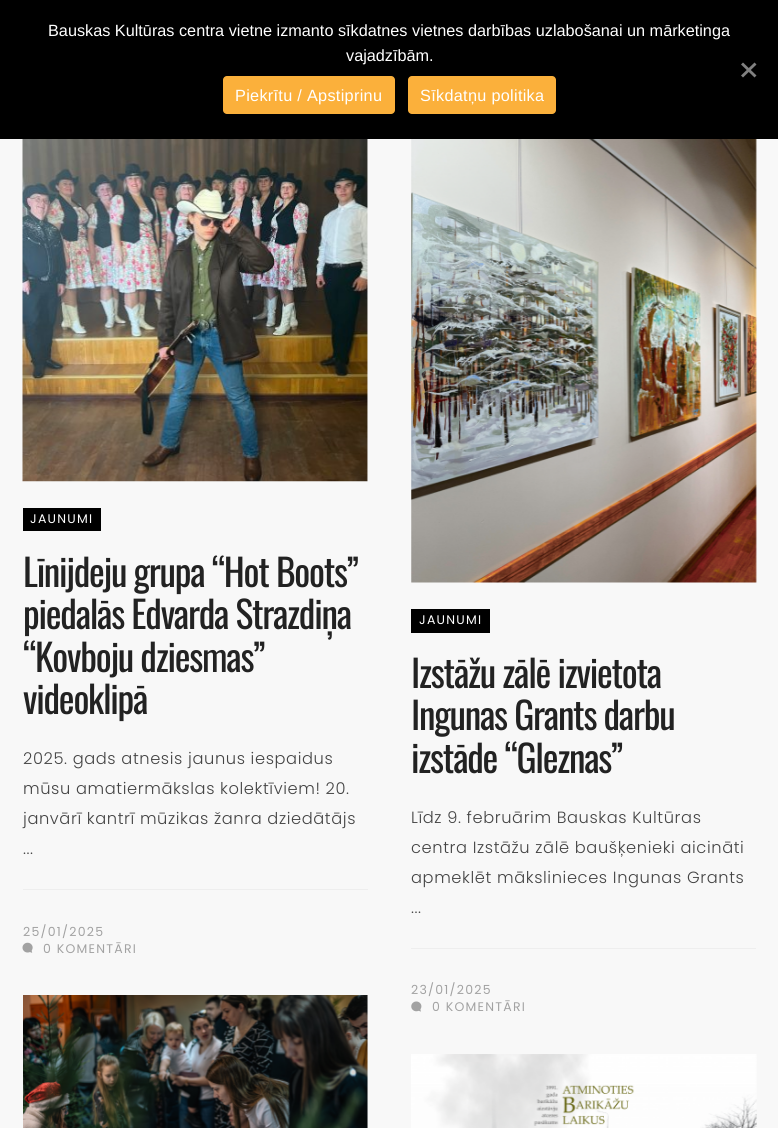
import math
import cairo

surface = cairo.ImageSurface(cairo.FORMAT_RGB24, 778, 1128)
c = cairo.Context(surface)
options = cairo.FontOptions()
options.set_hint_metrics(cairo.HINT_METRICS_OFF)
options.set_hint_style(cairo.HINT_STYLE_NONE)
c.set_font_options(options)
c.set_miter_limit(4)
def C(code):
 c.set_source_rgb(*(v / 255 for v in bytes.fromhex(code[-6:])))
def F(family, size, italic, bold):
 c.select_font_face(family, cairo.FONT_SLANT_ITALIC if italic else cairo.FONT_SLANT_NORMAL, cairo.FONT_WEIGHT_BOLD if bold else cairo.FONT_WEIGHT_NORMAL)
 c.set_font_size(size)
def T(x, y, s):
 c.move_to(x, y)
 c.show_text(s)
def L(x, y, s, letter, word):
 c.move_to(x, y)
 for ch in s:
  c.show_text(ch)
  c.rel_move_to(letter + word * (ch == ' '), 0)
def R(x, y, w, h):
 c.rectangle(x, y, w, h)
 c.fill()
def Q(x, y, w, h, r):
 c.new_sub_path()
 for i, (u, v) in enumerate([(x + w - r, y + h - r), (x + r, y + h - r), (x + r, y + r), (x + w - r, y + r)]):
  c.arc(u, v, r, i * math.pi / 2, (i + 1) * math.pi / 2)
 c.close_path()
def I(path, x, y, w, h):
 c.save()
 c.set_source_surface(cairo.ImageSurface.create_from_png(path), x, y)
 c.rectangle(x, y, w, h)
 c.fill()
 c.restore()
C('f8f8f8')
c.paint()
C('000000')
R(0,0,778,139)
F('Liberation Sans',16.25,0,0)
C('ffffff')
T(48,36,'Bauskas Kultūras centra vietne izmanto sīkdatnes vietnes darbības uzlabošanai un mārketinga')
T(346,61,'vajadzībām.')
C('808080')
c.new_path()
c.move_to(754.5,62.5)
c.line_to(756.5,64.5)
c.line_to(743,77.5)
c.line_to(741,75.5)
c.close_path()
c.fill()
c.new_path()
c.move_to(741,64.5)
c.line_to(743,62.5)
c.line_to(756.5,75.5)
c.line_to(754.5,77.5)
c.close_path()
c.fill()
C('fbb03b')
Q(223,76,172,38,4)
c.fill()
C('ffffff')
L(235,101,'Piekrītu / Apstiprinu',.3,0)
C('fbb03b')
Q(408,76,148,38,4)
c.fill()
C('ffffff')
L(420,101,'Sīkdatņu politika',.3,0)
I('1.png',22,139,346,343)
C('000000')
R(23,508,78,23)
F('Poppins',12.5,0,0)
C('ffffff')
L(30,523,'JAUNUMI',1.25,0)
F('Oswald',37.5,0,0)
C('222222')
L(23,587,'Līnijdeju grupa “Hot Boots”',-1.25,0)
L(23,629,'piedalās Edvarda Strazdiņa',-1.25,0)
L(23,672,'“Kovboju dziesmas”',-1.25,0)
L(23,714,'videoklipā',-1.25,0)
F('Poppins Light',16.25,0,0)
C('444444')
L(23,764,'2025. gads atnesis jaunus iespaidus',.6,0)
L(23,794,'mūsu amatiermākslas kolektīviem! 20.',.6,0)
L(23,824,'janvārī kantrī mūzikas žanra dziedātājs',.6,0)
L(23,854,'...',.6,0)
C('eeeeee')
R(23,889,345,1)
F('Poppins',12.5,0,0)
C('a2a2a2')
L(23,936,'25/01/2025',1.25,0)
I('2.png',22,942,11,11)
L(43,953,'0 KOMENTĀRI',1.25,0)
I('3.png',411,139,346,444)
C('000000')
R(411,609,79,24)
C('ffffff')
L(419,624,'JAUNUMI',1.25,0)
F('Oswald',37.5,0,0)
C('222222')
L(411,688,'Izstāžu zālē izvietota',-1.25,0)
L(411,730,'Ingunas Grants darbu',-1.25,0)
L(411,773,'izstāde “Gleznas”',-1.25,0)
F('Poppins Light',16.25,0,0)
C('444444')
L(411,823,'Līdz 9. februārim Bauskas Kultūras',.6,0)
L(411,853,'centra Izstāžu zālē baušķenieki aicināti',.6,0)
L(411,883,'apmeklēt mākslinieces Ingunas Grants',.6,0)
L(411,913,'...',.6,0)
C('eeeeee')
R(411,948,345,1)
F('Poppins',12.5,0,0)
C('a2a2a2')
L(411,994,'23/01/2025',1.25,0)
I('4.png',411,1001,11,11)
L(432,1011,'0 KOMENTĀRI',1.25,0)
I('5.png',23,995,345,133)
I('6.png',411,1054,346,74)
surface.write_to_png('o.png')
